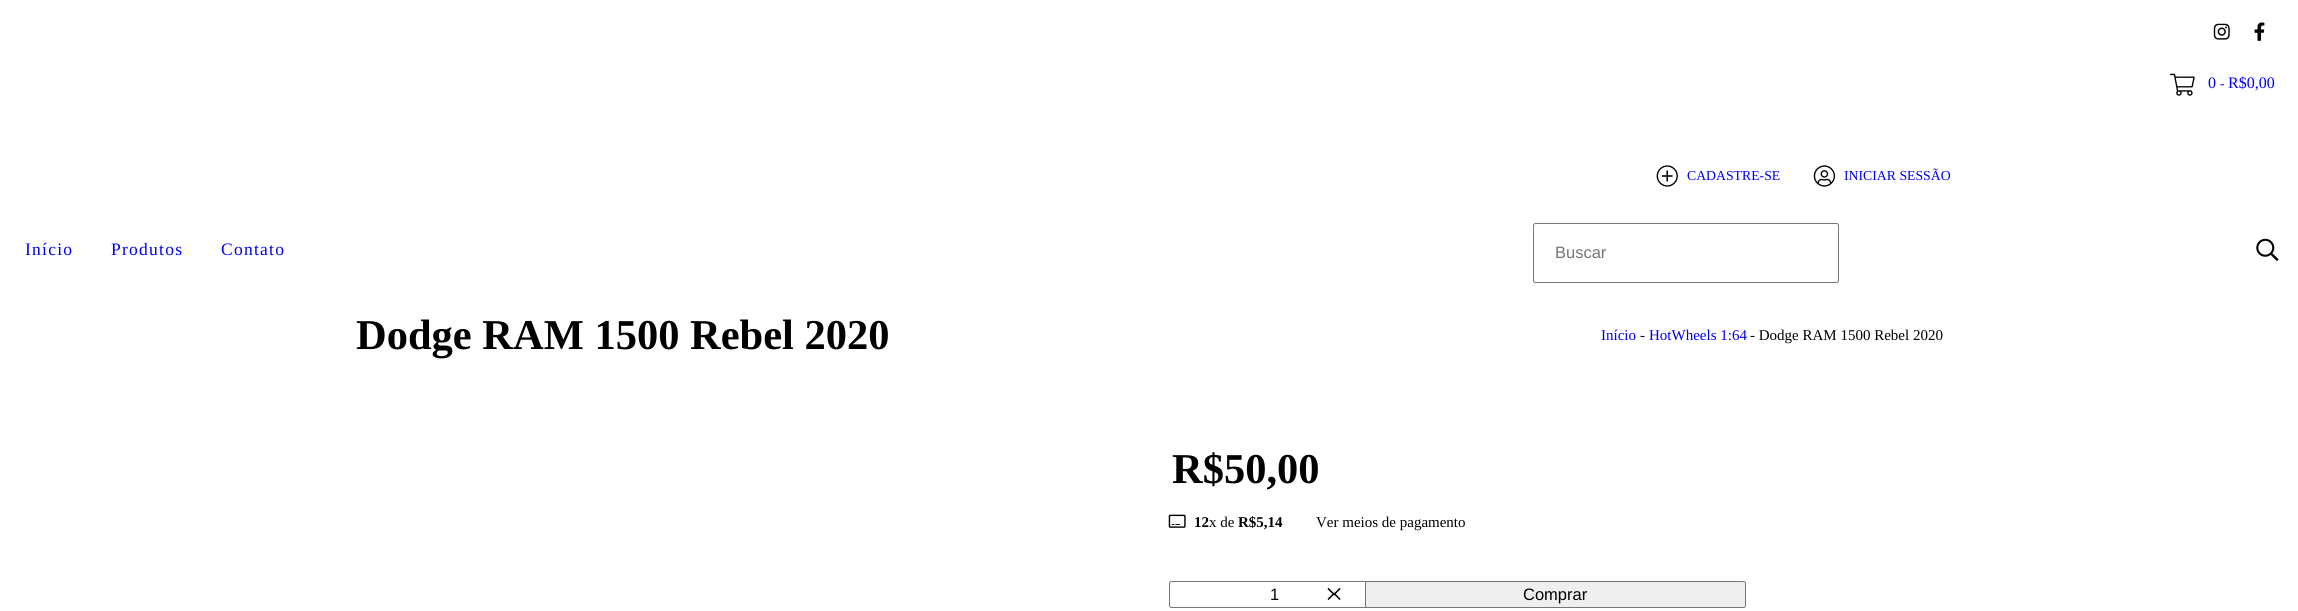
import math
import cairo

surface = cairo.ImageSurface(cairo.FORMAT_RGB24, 2298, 611)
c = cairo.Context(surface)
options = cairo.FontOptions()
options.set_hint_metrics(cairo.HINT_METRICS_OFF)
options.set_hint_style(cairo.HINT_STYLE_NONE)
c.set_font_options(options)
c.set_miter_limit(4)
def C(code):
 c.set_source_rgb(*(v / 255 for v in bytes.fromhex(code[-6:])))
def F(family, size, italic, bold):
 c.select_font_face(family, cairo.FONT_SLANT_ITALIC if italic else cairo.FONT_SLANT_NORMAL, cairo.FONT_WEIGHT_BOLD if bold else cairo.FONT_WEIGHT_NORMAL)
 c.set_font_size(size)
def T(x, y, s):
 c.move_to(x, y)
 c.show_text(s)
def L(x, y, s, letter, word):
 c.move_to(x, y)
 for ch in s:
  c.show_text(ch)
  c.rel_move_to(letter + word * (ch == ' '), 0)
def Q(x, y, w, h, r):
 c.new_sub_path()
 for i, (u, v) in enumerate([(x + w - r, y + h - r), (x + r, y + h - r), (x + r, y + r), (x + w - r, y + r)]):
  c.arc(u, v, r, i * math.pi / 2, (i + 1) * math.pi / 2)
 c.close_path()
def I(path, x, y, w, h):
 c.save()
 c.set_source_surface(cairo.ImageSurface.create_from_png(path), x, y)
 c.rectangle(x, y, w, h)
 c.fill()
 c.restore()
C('ffffff')
c.paint()
I('1.png',2213,23,17,17)
I('2.png',2254,22,11,19)
I('3.png',2170,73,25,23)
F('Liberation Serif',16,0,0)
C('0000ee')
T(2208,88,'0')
F('Liberation Serif',13.75,0,0)
T(2220,88,'-')
F('Liberation Serif',16,0,0)
T(2228,88,'R$0,00')
I('4.png',1656,165,22,22)
F('Liberation Serif',13.75,0,0)
T(1687,180,'CADASTRE-SE')
I('5.png',1813,165,22,22)
T(1844,180,'INICIAR SESSÃO')
F('Liberation Serif',17.5,0,0)
L(25,255,'Início',1.25,0)
L(111,255,'Produtos',1.25,0)
L(221,255,'Contato',1.25,0)
Q(1533.5,223.5,305,59,2)
C('767676')
c.set_line_width(1)
c.stroke()
F('Liberation Sans',16.5,0,0)
C('757575')
T(1555,258,'Buscar')
I('6.png',2256,238,23,23)
F('Liberation Serif',42.5,0,1)
C('000000')
T(356,349,'Dodge RAM 1500 Rebel 2020')
F('Liberation Serif',15,0,0)
C('0000ee')
T(1601,340,'Início')
C('000000')
T(1640,340,'-')
C('0000ee')
T(1649,340,'HotWheels 1:64')
C('000000')
T(1750,340,'- Dodge RAM 1500 Rebel 2020')
F('Liberation Serif',42.5,0,1)
T(1172,483,'R$50,00')
I('7.png',1168,514,18,14)
F('Liberation Serif',15,0,1)
T(1194,527,'12')
F('Liberation Serif',15,0,0)
T(1209,527,'x de')
F('Liberation Serif',15,0,1)
T(1238,527,'R$5,14')
F('Liberation Serif',15,0,0)
T(1316,527,'Ver meios de pagamento')
Q(1169.5,581.5,230,26,2)
C('767676')
c.stroke()
F('Liberation Sans',16.5,0,0)
C('000000')
T(1270,600,'1')
I('8.png',1327,588,14,8)
I('9.png',1327,592,14,8)
C('efefef')
Q(1365.5,581.5,380,26,2)
c.fill_preserve()
C('767676')
c.stroke()
C('000000')
T(1523,600,'Comprar')
surface.write_to_png('o.png')
